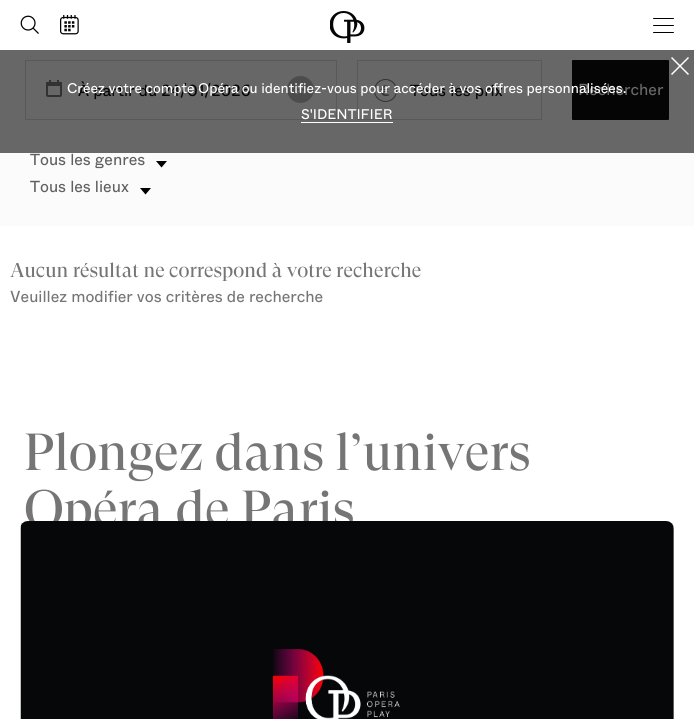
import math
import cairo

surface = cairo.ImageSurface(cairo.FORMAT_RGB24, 694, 719)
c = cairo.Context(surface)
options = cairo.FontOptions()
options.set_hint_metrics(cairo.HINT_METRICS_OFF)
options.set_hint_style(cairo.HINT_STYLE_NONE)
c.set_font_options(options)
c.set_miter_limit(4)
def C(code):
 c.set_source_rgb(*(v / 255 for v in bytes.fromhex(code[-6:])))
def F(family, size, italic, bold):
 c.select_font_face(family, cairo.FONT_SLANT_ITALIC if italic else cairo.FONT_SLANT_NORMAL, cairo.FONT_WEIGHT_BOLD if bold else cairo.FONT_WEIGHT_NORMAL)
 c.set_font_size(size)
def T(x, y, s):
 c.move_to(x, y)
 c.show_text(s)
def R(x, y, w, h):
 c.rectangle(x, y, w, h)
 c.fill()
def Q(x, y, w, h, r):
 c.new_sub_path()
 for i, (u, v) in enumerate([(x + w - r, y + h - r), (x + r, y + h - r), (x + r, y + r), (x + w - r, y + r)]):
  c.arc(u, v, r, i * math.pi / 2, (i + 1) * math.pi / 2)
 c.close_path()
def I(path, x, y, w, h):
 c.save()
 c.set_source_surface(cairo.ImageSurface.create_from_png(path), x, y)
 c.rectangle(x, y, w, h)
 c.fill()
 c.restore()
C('ffffff')
c.paint()
I('1.png',20,15,19,19)
I('2.png',60,15,19,20)
I('3.png',330,11,35,32)
C('000000')
Q(653,25,21,1,.5)
c.fill()
Q(653,18,21,1,.5)
c.fill()
Q(653,32,21,1,.5)
c.fill()
C('fbfbfb')
R(0,153,694,73)
C('676767')
R(0,50,694,103)
I('4.png',46,80,16,17)
c.rectangle(25.5,60.5,311,59)
C('595959')
c.set_line_width(1)
c.stroke()
F('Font',16,0,0)
C('050505')
T(78,96,'À partir du 24/01/2026')
I('5.png',287,76,27,27)
I('6.png',374,79,23,23)
c.rectangle(357.5,60.5,184,59)
C('595959')
c.stroke()
C('050505')
T(410,96,'Tous les prix')
Q(572,60,97,60,1)
c.fill()
C('696969')
T(578,95,'Rechercher')
C('606060')
T(30,165,'Tous les genres')
C('000000')
c.new_path()
c.move_to(167,161)
c.line_to(161.5,167.5)
c.line_to(156,161)
c.fill()
C('606060')
T(30,192,'Tous les lieux')
C('000000')
c.new_path()
c.move_to(151,188)
c.line_to(145.5,194.5)
c.line_to(140,188)
c.fill()
F('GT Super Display',20,0,0)
C('757575')
T(10,277,'Aucun résultat ne correspond à votre recherche')
F('Font',16,0,0)
T(10,302,'Veuillez modifier vos critères de recherche')
I('7.png',671,57,18,18)
F('Font',14,0,0)
C('ffffff')
T(67,93,'Créez votre compte Opéra ou identifiez-vous pour accéder à vos offres personnalisées.')
R(301,122,92,1)
T(301,119,'S\'IDENTIFIER')
F('GT Super Display',52,0,0)
C('757575')
T(24,470,'Plongez dans l’univers')
T(24,527,'Opéra de Paris')
I('8.png',20,521,654,198)
I('9.png',273,649,127,70)
surface.write_to_png('o.png')
